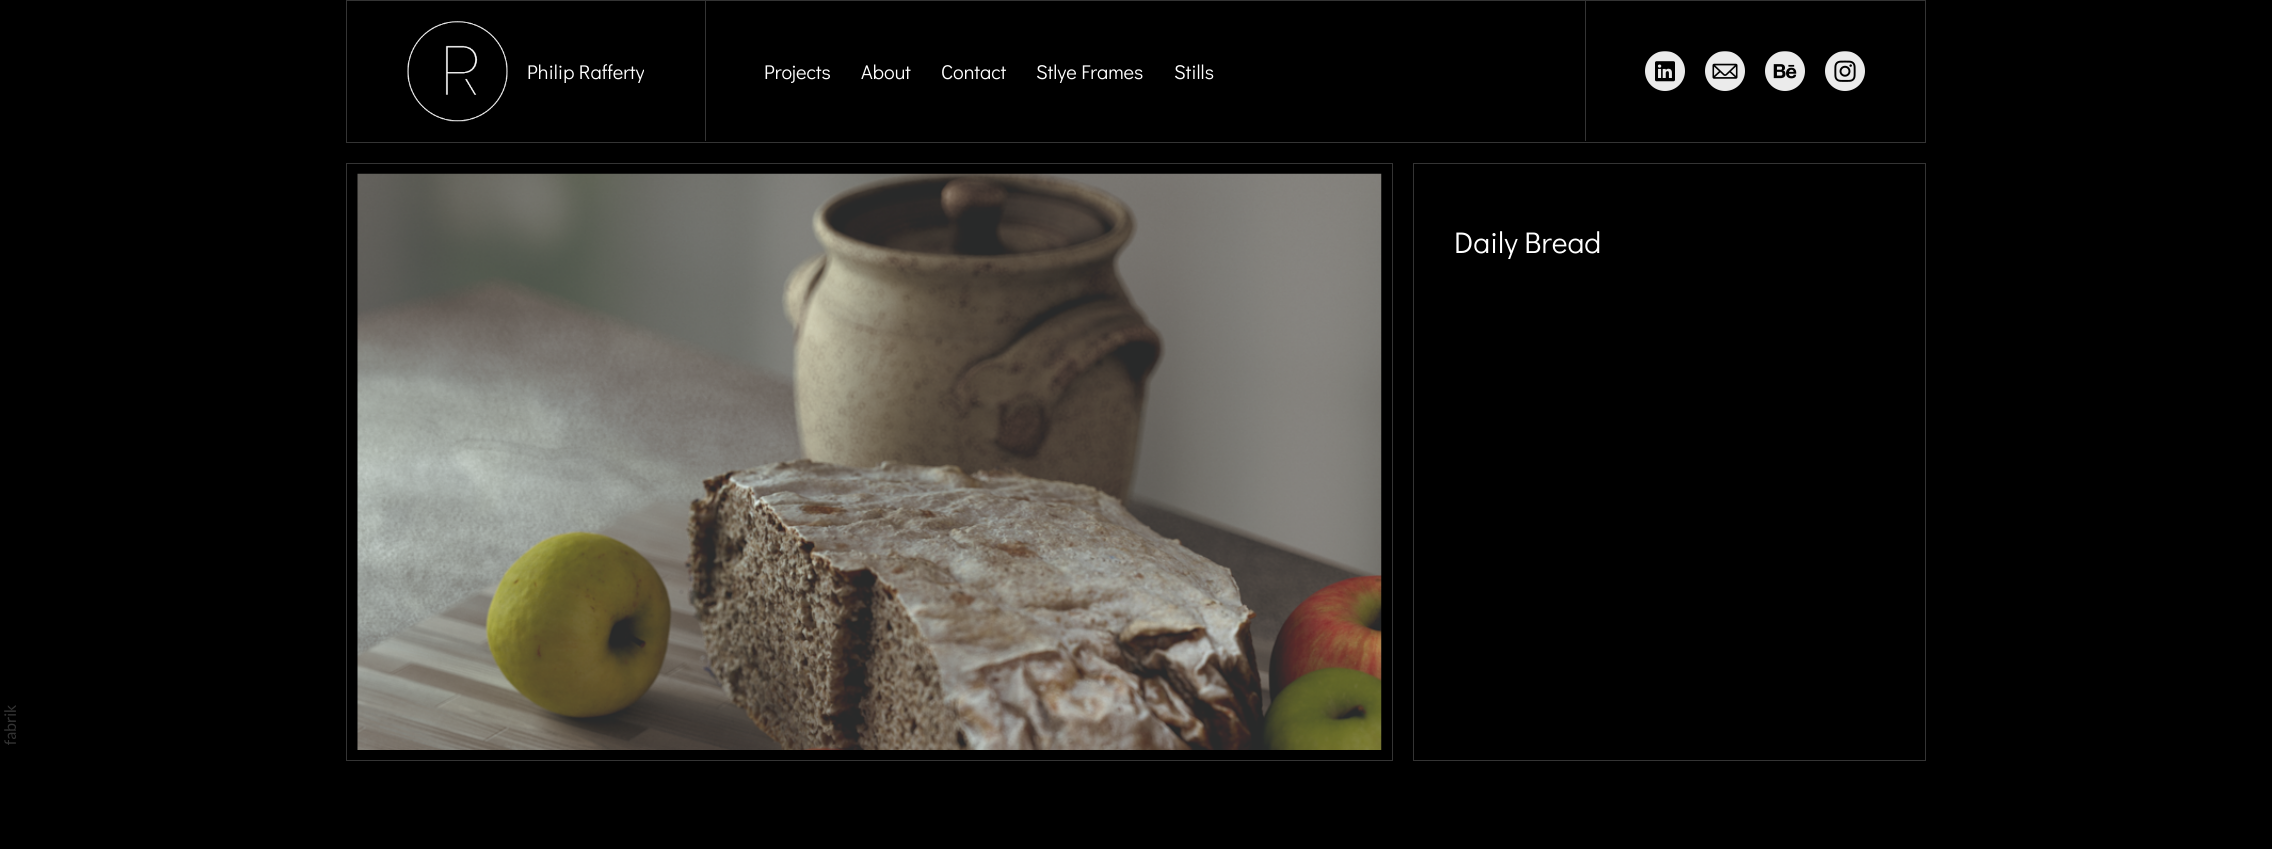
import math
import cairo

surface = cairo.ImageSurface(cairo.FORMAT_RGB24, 2272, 849)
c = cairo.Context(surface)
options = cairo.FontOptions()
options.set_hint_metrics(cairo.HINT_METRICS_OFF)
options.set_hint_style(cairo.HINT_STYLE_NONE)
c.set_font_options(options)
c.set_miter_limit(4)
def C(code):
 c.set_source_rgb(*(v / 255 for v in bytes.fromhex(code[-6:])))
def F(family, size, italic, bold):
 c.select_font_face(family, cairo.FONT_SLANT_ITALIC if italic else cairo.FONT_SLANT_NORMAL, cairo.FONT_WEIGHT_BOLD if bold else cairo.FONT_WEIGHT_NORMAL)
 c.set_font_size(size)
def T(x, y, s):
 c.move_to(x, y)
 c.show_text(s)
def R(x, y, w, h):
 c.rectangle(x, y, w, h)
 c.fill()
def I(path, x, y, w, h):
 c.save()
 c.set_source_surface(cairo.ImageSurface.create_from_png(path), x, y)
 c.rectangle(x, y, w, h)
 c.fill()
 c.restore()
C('000000')
c.paint()
c.rectangle(346.5,.5,1579,142)
C('343434')
c.set_line_width(1)
c.stroke()
I('1.png',407,21,101,101)
F('Didact Gothic',20,0,0)
C('ffffff')
T(527,79,'Philip Rafferty')
C('343434')
R(705,1,1,140)
C('ffffff')
T(764,79,'Projects')
T(861,79,'About')
T(941,79,'Contact')
T(1036,79,'Stlye Frames')
T(1174,79,'Stills')
C('343434')
R(1585,1,1,140)
I('2.png',1645,51,40,40)
I('3.png',1705,51,40,40)
I('4.png',1765,51,40,40)
I('5.png',1825,51,40,40)
c.rectangle(346.5,163.5,1046,597)
c.stroke()
I('6.png',357,173,1025,577)
c.rectangle(1413.5,163.5,512,597)
c.stroke()
F('Didact Gothic',30,0,0)
C('ffffff')
T(1454,253,'Daily Bread')
I('7.png',4,705,12,40)
surface.write_to_png('o.png')
